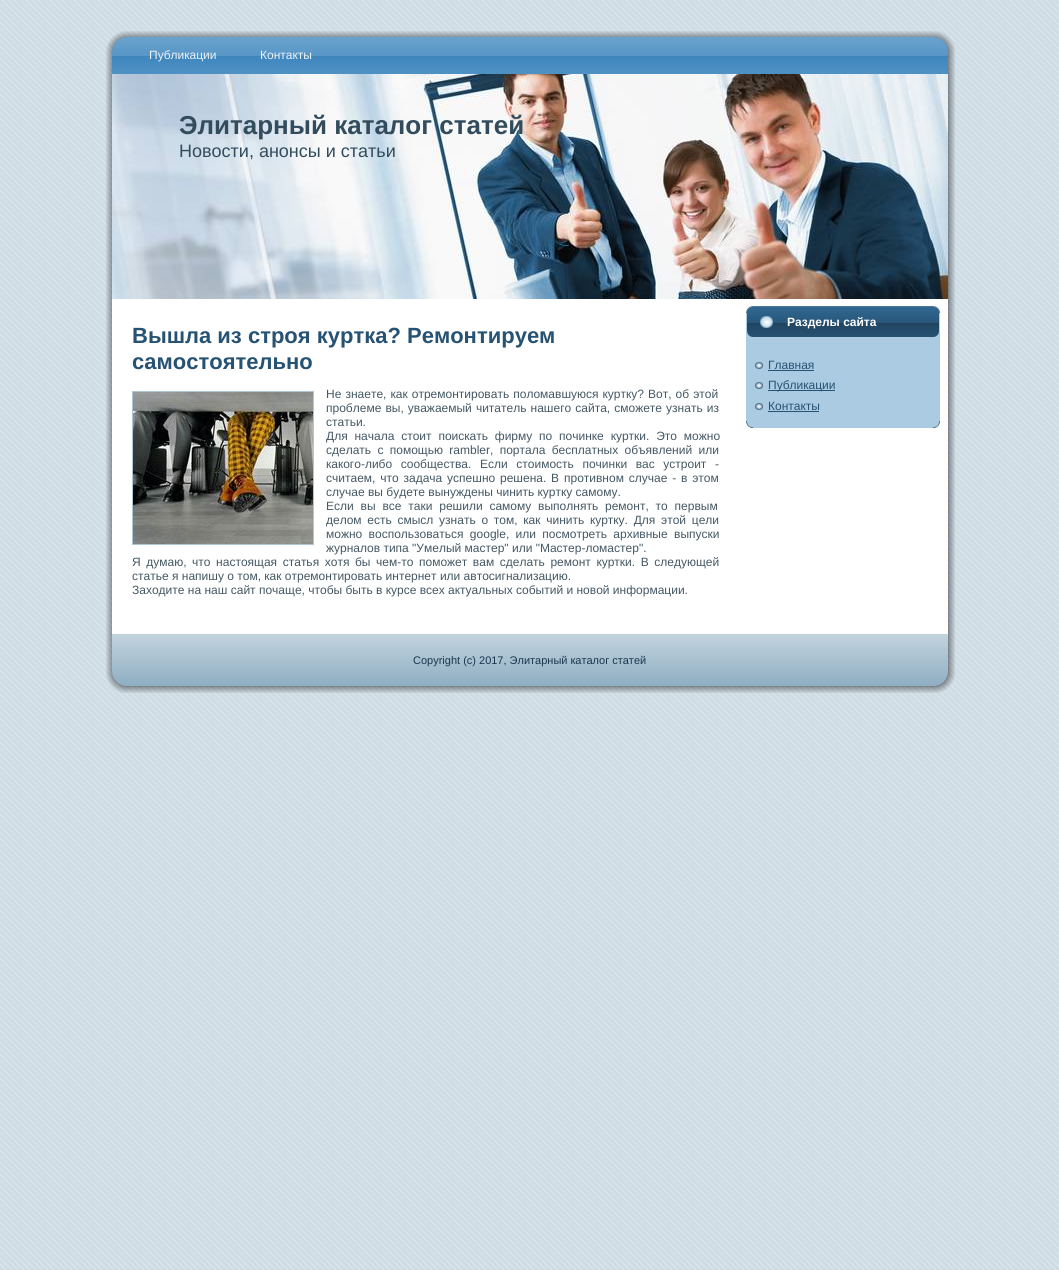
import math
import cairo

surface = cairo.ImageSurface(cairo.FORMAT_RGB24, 1059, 1270)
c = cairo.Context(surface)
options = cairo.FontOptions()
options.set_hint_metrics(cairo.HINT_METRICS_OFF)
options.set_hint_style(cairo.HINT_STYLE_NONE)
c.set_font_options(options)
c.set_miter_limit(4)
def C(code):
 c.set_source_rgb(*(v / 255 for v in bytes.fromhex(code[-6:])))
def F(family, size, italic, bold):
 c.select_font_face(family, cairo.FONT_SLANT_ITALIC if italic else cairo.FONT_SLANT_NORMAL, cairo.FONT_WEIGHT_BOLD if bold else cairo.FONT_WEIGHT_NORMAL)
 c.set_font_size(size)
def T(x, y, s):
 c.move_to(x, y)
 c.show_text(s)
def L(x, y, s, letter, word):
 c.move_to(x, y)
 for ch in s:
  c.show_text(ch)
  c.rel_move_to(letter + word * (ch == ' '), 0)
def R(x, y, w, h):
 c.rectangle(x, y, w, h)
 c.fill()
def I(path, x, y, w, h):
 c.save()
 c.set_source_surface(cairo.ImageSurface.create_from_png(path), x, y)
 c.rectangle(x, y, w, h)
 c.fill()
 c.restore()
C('ffffff')
c.paint()
I('1.png',0,0,1059,1270)
I('2.png',106,31,42,42)
I('3.png',148,31,764,6)
I('4.png',912,31,43,42)
I('5.png',106,73,42,577)
I('19.png',912,73,43,577)
I('6.png',112,37,821,37)
I('7.png',933,37,15,37)
F('Liberation Sans',12,0,0)
C('ecf3f9')
T(149,59,'Публикации')
T(260,59,'Контакты')
I('8.png',112,74,836,225)
F('Liberation Sans',26,0,1)
C('324c5d')
T(179,134,'Элитарный каталог статей')
F('Liberation Sans',18,0,0)
T(179,157,'Новости, анонсы и статьи')
C('ffffff')
R(148,299,764,335)
F('Liberation Sans',22,0,1)
C('265273')
T(132,343,'Вышла из строя куртка? Ремонтируем')
T(132,369,'самостоятельно')
c.rectangle(132.5,391.5,181,153)
C('afc6d4')
c.set_line_width(1)
c.stroke()
I('9.png',133,392,180,152)
F('Liberation Sans',12,0,0)
C('445864')
L(326,398,'Не знаете, как отремонтировать поломавшуюся куртку? Вот, об этой',0,.75)
L(326,412,'проблеме вы, уважаемый читатель нашего сайта, сможете узнать из',0,.75)
T(326,426,'статьи.')
L(326,440,'Для начала стоит поискать фирму по починке куртки. Это можно',0,3.5)
L(326,454,'сделать с помощью rambler, портала бесплатных объявлений или',0,3)
L(326,468,'какого-либо сообщества. Если стоимость починки вас устроит -',0,5.25)
L(326,482,'считаем, что задача успешно решена. В противном случае - в этом',0,1.5)
T(326,496,'случае вы будете вынуждены чинить куртку самому.')
L(326,510,'Если вы все таки решили самому выполнять ремонт, то первым',0,3.5)
L(326,524,'делом есть смысл узнать о том, как чинить куртку. Для этой цели',0,2.4)
L(326,538,'можно воспользоваться google, или посмотреть архивные выпуски',0,3)
T(326,552,'журналов типа "Умелый мастер" или "Мастер-ломастер".')
L(132,566,'Я думаю, что настоящая статья хотя бы чем-то поможет вам сделать ремонт куртки. В следующей',0,2.25)
T(132,580,'статье я напишу о том, как отремонтировать интернет или автосигнализацию.')
T(132,594,'Заходите на наш сайт почаще, чтобы быть в курсе всех актуальных событий и новой информации.')
I('10.png',746,306,7,7)
C('4f7892')
R(753,306,180,1)
I('11.png',933,306,7,7)
C('abcbe3')
R(746,313,7,108)
I('12.png',747,307,186,30)
R(933,313,7,108)
I('13.png',933,307,6,30)
I('14.png',760,316,13,12)
F('Liberation Sans',12,0,1)
C('ffffff')
T(787,326,'Разделы сайта')
C('abcbe3')
R(753,337,180,91)
I('15.png',755,362,8,7)
F('Liberation Sans',12,0,0)
C('265273')
T(768,369,'Главная')
R(768,370,46,1)
I('15.png',755,382,8,7)
R(768,390,67,1)
T(768,389,'Публикации')
I('15.png',755,403,8,7)
T(768,410,'Контакты')
R(768,411,51,1)
I('16.png',746,421,7,7)
I('17.png',933,421,7,7)
I('20.png',106,650,42,43)
I('22.png',912,650,43,43)
I('18.png',112,634,836,52)
F('Liberation Sans',11,0,0)
C('1a364d')
T(413,664,'Copyright (c) 2017, Элитарный каталог статей')
I('21.png',148,686,764,7)
surface.write_to_png('o.png')
